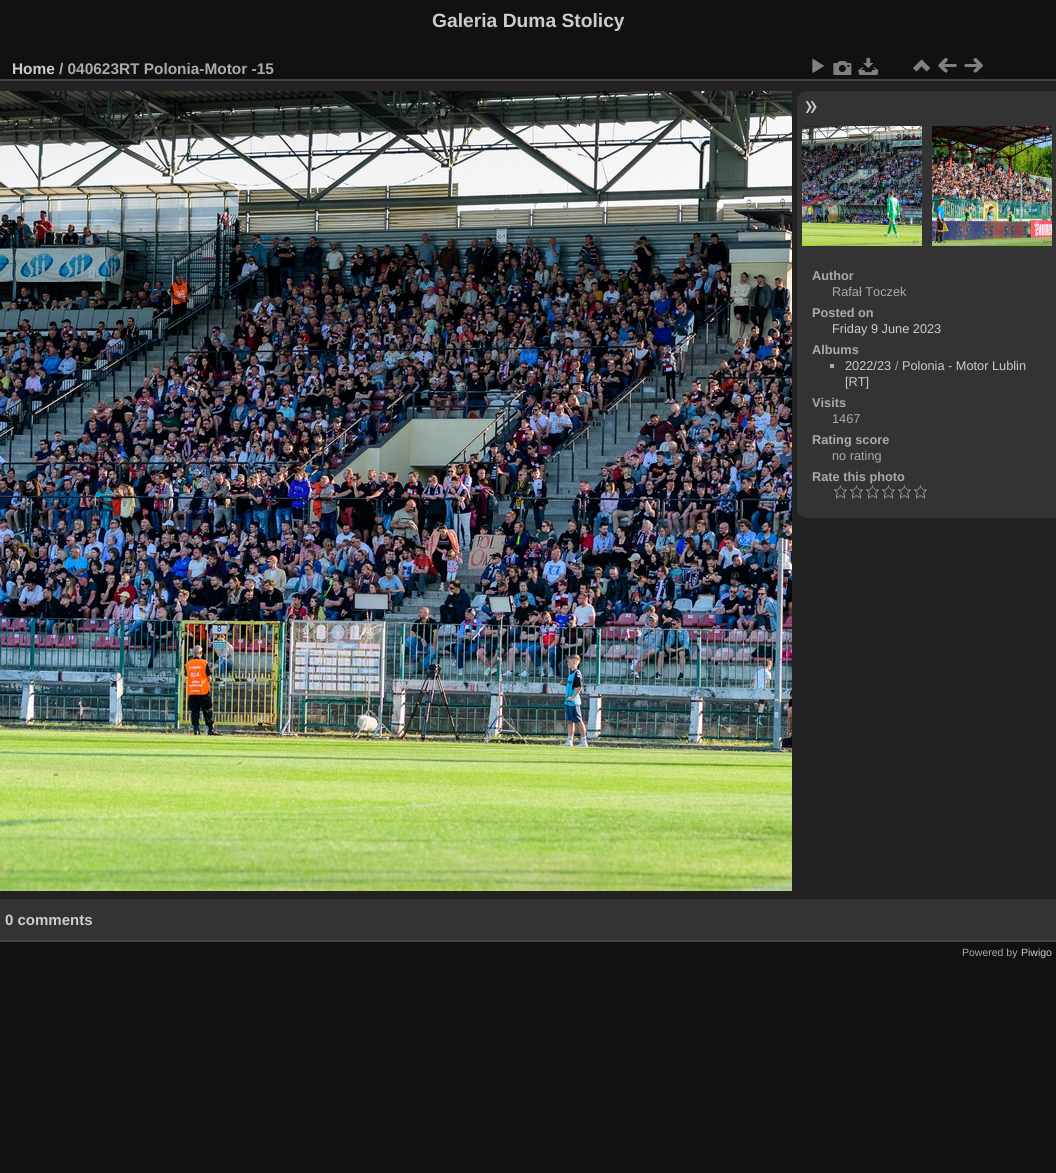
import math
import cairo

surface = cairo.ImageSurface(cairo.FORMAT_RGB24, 1056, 1173)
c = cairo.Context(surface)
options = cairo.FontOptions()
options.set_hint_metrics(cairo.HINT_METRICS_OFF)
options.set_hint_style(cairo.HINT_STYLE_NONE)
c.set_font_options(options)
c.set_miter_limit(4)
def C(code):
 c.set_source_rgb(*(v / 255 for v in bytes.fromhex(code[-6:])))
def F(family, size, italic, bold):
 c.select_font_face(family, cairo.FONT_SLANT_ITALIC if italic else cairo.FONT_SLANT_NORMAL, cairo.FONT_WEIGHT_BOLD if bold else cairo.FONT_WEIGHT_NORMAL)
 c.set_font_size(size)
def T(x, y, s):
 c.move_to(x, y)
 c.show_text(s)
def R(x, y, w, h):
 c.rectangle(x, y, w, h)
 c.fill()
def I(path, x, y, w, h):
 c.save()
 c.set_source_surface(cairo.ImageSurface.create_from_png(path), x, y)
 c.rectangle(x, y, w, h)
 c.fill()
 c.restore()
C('111111')
c.paint()
F('Liberation Sans',19.25,0,1)
C('cccccc')
T(432,27,'Galeria Duma Stolicy')
C('222222')
R(0,81,1056,818)
C('444444')
R(0,940,1056,2)
R(0,79,1056,2)
F('Liberation Sans',15.4,0,1)
C('cccccc')
T(12,74,'Home')
C('aaaaaa')
T(59,74,'/ 040623RT Polonia-Motor -15')
I('1.png',812,59,12,14)
I('2.png',833,61,19,14)
I('3.png',858,58,21,17)
I('4.png',913,59,17,13)
I('5.png',938,58,19,15)
I('6.png',964,58,19,15)
I('7.png',0,91,792,800)
C('333333')
c.new_path()
c.move_to(807,91)
c.line_to(1056,91)
c.line_to(1056,518)
c.line_to(807,518)
c.curve_to(801.5,518,797,513.5,797,508)
c.line_to(797,101)
c.curve_to(797,95.5,801.5,91,807,91)
c.close_path()
c.fill()
I('8.png',805,101,12,12)
I('9.png',802,126,120,120)
I('10.png',932,126,120,120)
F('Liberation Sans',12.75,0,1)
C('aaaaaa')
T(812,280,'Author')
F('Liberation Sans',12.75,0,0)
T(832,296,'Rafał Toczek')
F('Liberation Sans',12.75,0,1)
T(812,317,'Posted on')
F('Liberation Sans',12.75,0,0)
C('cccccc')
T(832,333,'Friday 9 June 2023')
F('Liberation Sans',12.75,0,1)
C('aaaaaa')
T(812,354,'Albums')
R(830,364,4,4)
F('Liberation Sans',12.75,0,0)
C('cccccc')
T(845,370,'2022/23')
C('aaaaaa')
T(895,370,'/')
C('cccccc')
T(902,370,'Polonia - Motor Lublin')
T(845,386,'[RT]')
F('Liberation Sans',12.75,0,1)
C('aaaaaa')
T(812,407,'Visits')
F('Liberation Sans',12.75,0,0)
T(832,423,'1467')
F('Liberation Sans',12.75,0,1)
T(812,444,'Rating score')
F('Liberation Sans',12.75,0,0)
T(832,460,'no rating')
F('Liberation Sans',12.75,0,1)
T(812,481,'Rate this photo')
I('11.png',834,485,13,14)
I('11.png',850,485,13,14)
I('11.png',866,485,13,14)
I('11.png',882,485,13,14)
I('11.png',898,485,13,14)
I('11.png',914,485,13,14)
C('333333')
R(0,899,1056,41)
F('Liberation Sans',15,0,1)
C('cccccc')
T(5,925,'0 comments')
F('Liberation Sans',10.5,0,0)
C('aaaaaa')
T(962,956,'Powered by')
C('cccccc')
T(1021,956,'Piwigo')
surface.write_to_png('o.png')
